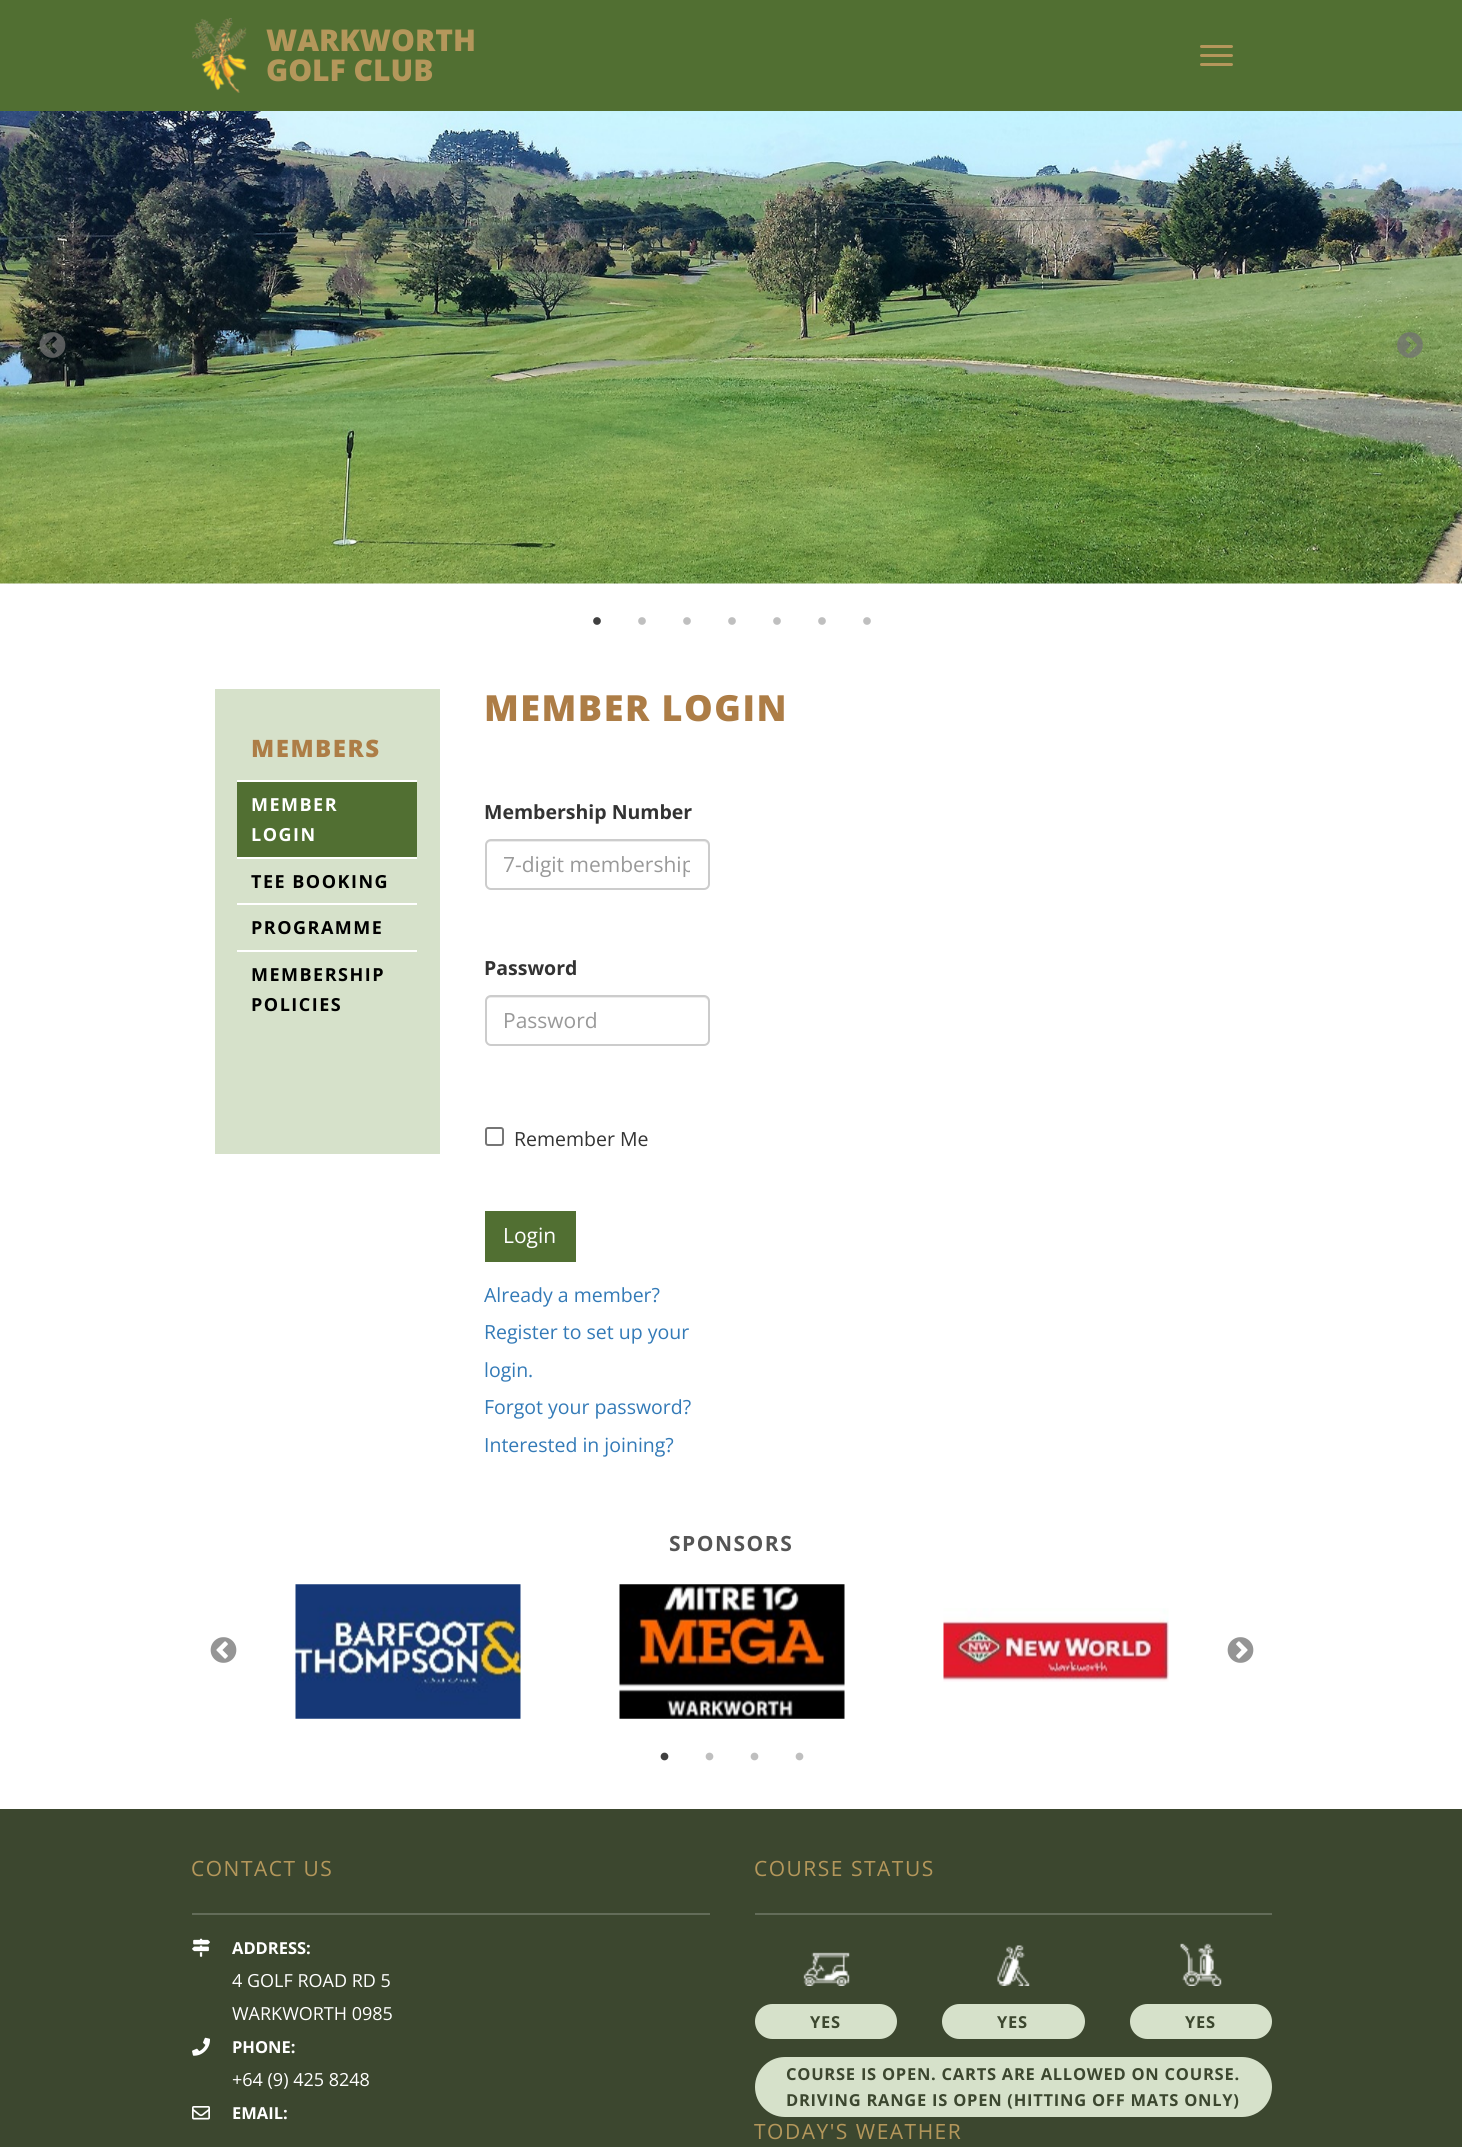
import math
import cairo

surface = cairo.ImageSurface(cairo.FORMAT_RGB24, 1462, 2147)
c = cairo.Context(surface)
options = cairo.FontOptions()
options.set_hint_metrics(cairo.HINT_METRICS_OFF)
options.set_hint_style(cairo.HINT_STYLE_NONE)
c.set_font_options(options)
c.set_miter_limit(4)
def C(code):
 c.set_source_rgb(*(v / 255 for v in bytes.fromhex(code[-6:])))
def F(family, size, italic, bold):
 c.select_font_face(family, cairo.FONT_SLANT_ITALIC if italic else cairo.FONT_SLANT_NORMAL, cairo.FONT_WEIGHT_BOLD if bold else cairo.FONT_WEIGHT_NORMAL)
 c.set_font_size(size)
def T(x, y, s):
 c.move_to(x, y)
 c.show_text(s)
def L(x, y, s, letter, word):
 c.move_to(x, y)
 for ch in s:
  c.show_text(ch)
  c.rel_move_to(letter + word * (ch == ' '), 0)
def R(x, y, w, h):
 c.rectangle(x, y, w, h)
 c.fill()
def Q(x, y, w, h, r):
 c.new_sub_path()
 for i, (u, v) in enumerate([(x + w - r, y + h - r), (x + r, y + h - r), (x + r, y + r), (x + w - r, y + r)]):
  c.arc(u, v, r, i * math.pi / 2, (i + 1) * math.pi / 2)
 c.close_path()
def I(path, x, y, w, h):
 c.save()
 c.set_source_surface(cairo.ImageSurface.create_from_png(path), x, y)
 c.rectangle(x, y, w, h)
 c.fill()
 c.restore()
C('ffffff')
c.paint()
C('516f32')
R(0,0,1462,111)
I('1.png',192,18,55,75)
F('Open Sans ExtraBold',30,0,0)
C('b4975b')
T(266,51,'WARKWORTH')
T(266,81,'GOLF CLUB')
Q(1200,45,33,3,1.5)
c.fill()
Q(1200,54,33,3,1.5)
c.fill()
Q(1200,63,33,3,1.5)
c.fill()
I('2.png',0,111,1462,473)
I('3.png',39,332,27,26)
I('4.png',1397,332,26,26)
I('5.png',593,617,8,8)
I('6.png',638,617,8,8)
I('6.png',683,617,8,8)
I('6.png',728,617,8,8)
I('6.png',773,617,8,8)
I('6.png',818,617,8,8)
I('6.png',863,617,8,8)
C('d6e1ca')
R(215,689,225,465)
F('Open Sans ExtraBold',24,0,0)
C('ad7d46')
L(251,757,'MEMBERS',1.5,0)
C('516f32')
R(237,782,180,75)
C('ffffff')
R(237,780,180,2)
F('Open Sans',18,0,1)
L(251,811,'MEMBER',1.5,0)
L(251,841,'LOGIN',1.5,0)
R(237,857,180,2)
C('000000')
L(251,888,'TEE BOOKING',1.5,0)
C('ffffff')
R(237,903,180,2)
C('000000')
L(251,934,'PROGRAMME',1.5,0)
C('ffffff')
R(237,950,180,2)
C('000000')
L(251,981,'MEMBERSHIP',1.5,0)
L(251,1011,'POLICIES',1.5,0)
F('Open Sans ExtraBold',36,0,0)
C('ad7d46')
L(484,721,'MEMBER LOGIN',1.5,0)
F('Open Sans',19.5,0,1)
C('333333')
T(484,819,'Membership Number')
C('ececec')
c.new_path()
c.move_to(490,842)
c.line_to(704,842)
c.curve_to(706,842,708,844,708,846)
c.line_to(708,845)
c.curve_to(708,842,706,840,703,840)
c.line_to(491,840)
c.curve_to(488,840,486,842,486,845)
c.line_to(486,846)
c.curve_to(486,844,488,842,490,842)
c.close_path()
c.fill()
Q(486,840,223,49,5)
C('cccccc')
c.stroke()
c.save()
c.rectangle(504,849,186,29)
c.clip()
F('Open Sans',21,0,0)
C('999999')
T(503,872,'7-digit membership')
c.restore()
C('333333')
T(484,975,'Password')
C('ececec')
c.new_path()
c.move_to(490,998)
c.line_to(704,998)
c.curve_to(706,998,708,1000,708,1002)
c.line_to(708,1001)
c.curve_to(708,998,706,996,703,996)
c.line_to(491,996)
c.curve_to(488,996,486,998,486,1001)
c.line_to(486,1002)
c.curve_to(486,1000,488,998,490,998)
c.close_path()
c.fill()
Q(486,996,223,49,5)
C('cccccc')
c.stroke()
F('Open Sans',21,0,0)
C('999999')
T(503,1028,'Password')
Q(486,1128,17,17,2)
C('767676')
c.stroke()
F('Open Sans',19.5,0,0)
C('333333')
T(514,1146,'Remember Me')
C('516f32')
R(485,1211,91,51)
F('Open Sans',21,0,0)
C('ffffff')
T(503,1243,'Login')
F('Open Sans',19.5,0,0)
C('337ab7')
T(484,1302,'Already a member?')
T(484,1339,'Register to set up your')
T(484,1377,'login.')
T(484,1414,'Forgot your password?')
T(484,1452,'Interested in joining?')
F('Open Sans',21,0,1)
C('555555')
L(669,1551,'SPONSORS',1.5,0)
I('7.png',210,1637,27,26)
I('8.png',295,1584,226,135)
I('9.png',619,1584,226,135)
I('10.png',943,1608,226,74)
I('11.png',1227,1637,27,26)
I('12.png',660,1752,9,9)
I('13.png',705,1752,9,9)
I('13.png',750,1752,9,9)
I('13.png',795,1752,9,9)
C('3c472f')
R(0,1809,1462,338)
C('636c59')
R(192,1913,518,2)
F('Open Sans',21,0,0)
C('b4975b')
L(191,1876,'CONTACT US',1.5,0)
I('14.png',192,1938,18,19)
F('Open Sans',16.5,0,1)
C('ffffff')
T(232,1954,'ADDRESS:')
F('Open Sans',18,0,0)
T(232,1987,'4 GOLF ROAD RD 5')
T(232,2020,'WARKWORTH 0985')
I('15.png',192,2037,18,19)
F('Open Sans',16.5,0,1)
T(232,2053,'PHONE:')
F('Open Sans',18,0,0)
T(232,2086,'+64 (9) 425 8248')
I('16.png',192,2106,18,14)
F('Open Sans',16.5,0,1)
T(232,2119,'EMAIL:')
C('636c59')
R(755,1913,517,2)
F('Open Sans',21,0,0)
C('b4975b')
L(754,1876,'COURSE STATUS',1.5,0)
I('17.png',803,1952,47,34)
C('d6e1ca')
Q(755,2004,142,35,17.5)
c.fill()
F('Open Sans',16.5,0,1)
C('3c472f')
L(810,2028,'YES',.75,0)
I('18.png',997,1945,33,41)
C('d6e1ca')
Q(942,2004,143,35,17.5)
c.fill()
C('3c472f')
L(997,2028,'YES',.75,0)
I('19.png',1180,1943,42,43)
C('d6e1ca')
Q(1130,2004,142,35,17.5)
c.fill()
C('3c472f')
L(1185,2028,'YES',.75,0)
C('d6e1ca')
Q(755,2057,517,60,30)
c.fill()
C('3c472f')
L(786,2080,'COURSE IS OPEN. CARTS ARE ALLOWED ON COURSE.',.75,0)
L(786,2106,'DRIVING RANGE IS OPEN (HITTING OFF MATS ONLY)',.75,0)
F('Open Sans',21,0,0)
C('b4975b')
L(754,2139,'TODAY\'S WEATHER',1.5,0)
surface.write_to_png('o.png')
